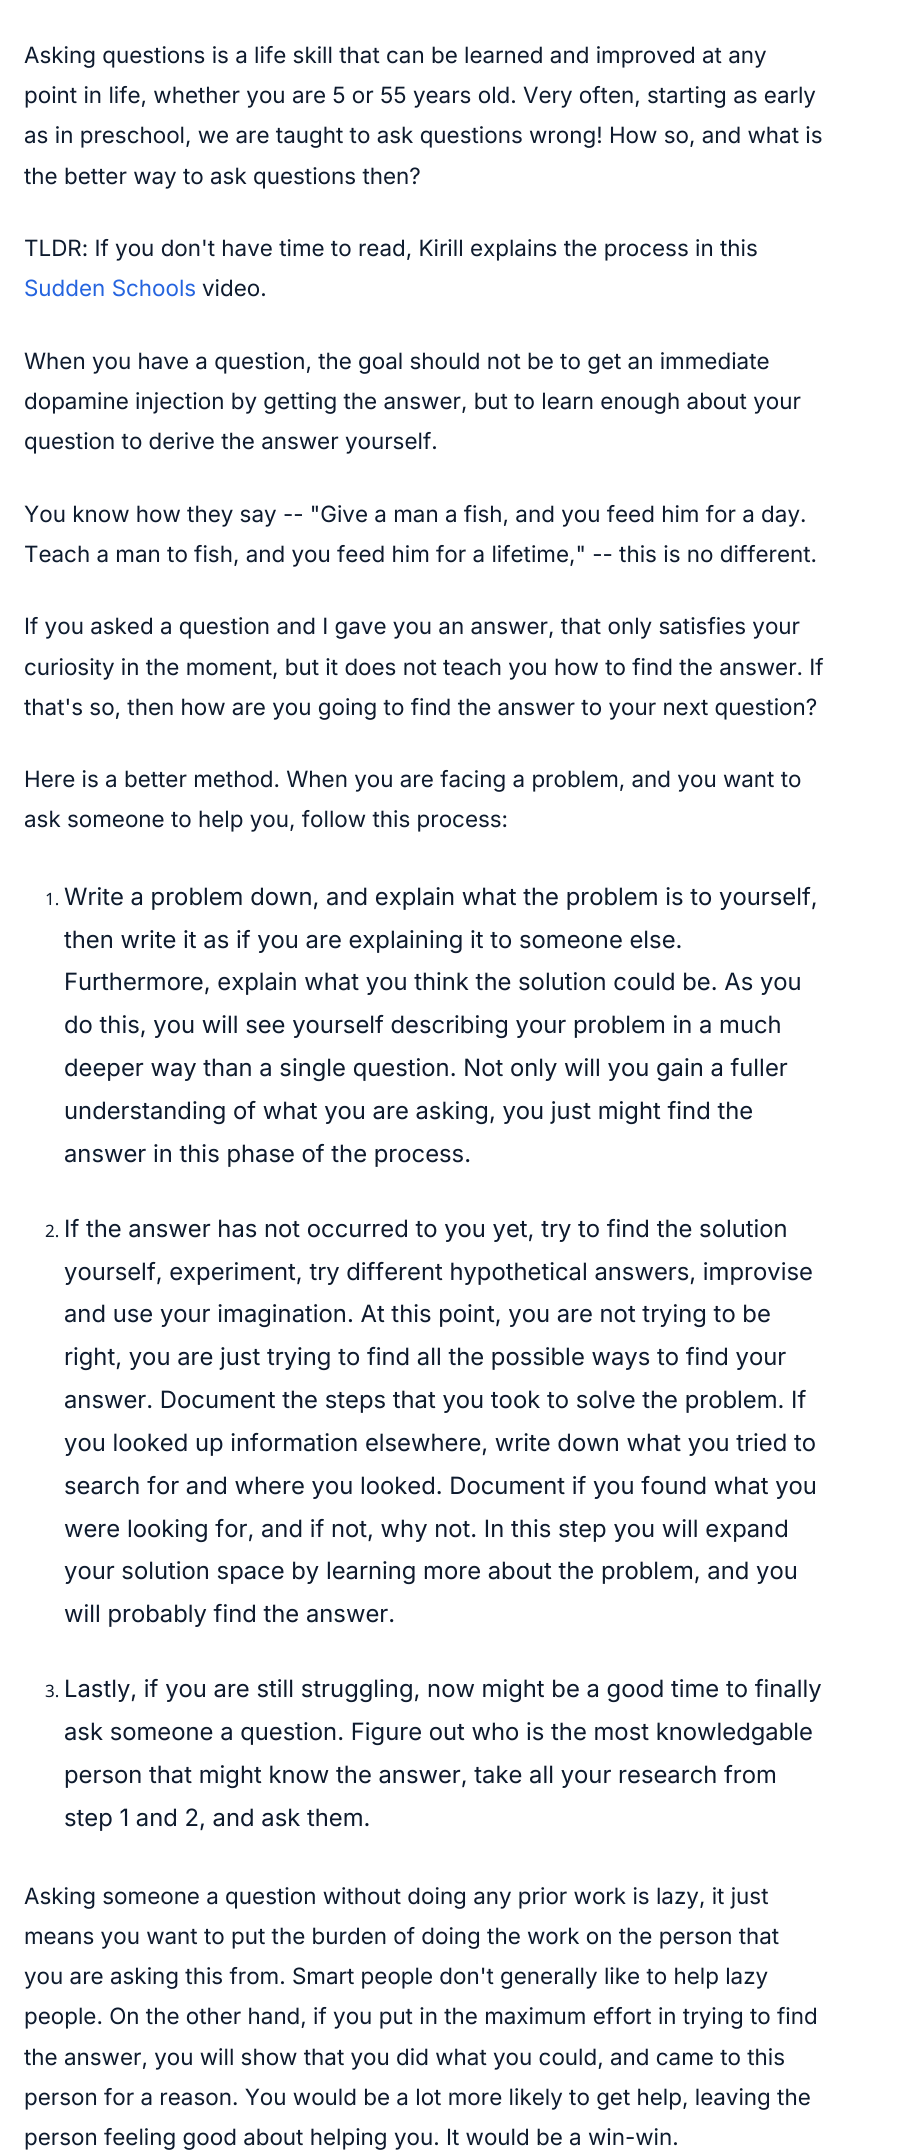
import math
import cairo

surface = cairo.ImageSurface(cairo.FORMAT_RGB24, 899, 2153)
c = cairo.Context(surface)
options = cairo.FontOptions()
options.set_hint_metrics(cairo.HINT_METRICS_OFF)
options.set_hint_style(cairo.HINT_STYLE_NONE)
c.set_font_options(options)
c.set_miter_limit(4)
def C(code):
 c.set_source_rgb(*(v / 255 for v in bytes.fromhex(code[-6:])))
def F(family, size, italic, bold):
 c.select_font_face(family, cairo.FONT_SLANT_ITALIC if italic else cairo.FONT_SLANT_NORMAL, cairo.FONT_WEIGHT_BOLD if bold else cairo.FONT_WEIGHT_NORMAL)
 c.set_font_size(size)
def T(x, y, s):
 c.move_to(x, y)
 c.show_text(s)
C('ffffff')
c.paint()
F('Inter',22.4,0,0)
C('0e1b2e')
T(24,63,'Asking questions is a life skill that can be learned and improved at any')
T(24,103,'point in life, whether you are 5 or 55 years old. Very often, starting as early')
T(24,143,'as in preschool, we are taught to ask questions wrong! How so, and what is')
T(24,184,'the better way to ask questions then?')
T(24,256,'TLDR: If you don\'t have time to read, Kirill explains the process in this')
C('2564df')
T(24,296,'Sudden Schools')
C('0e1b2e')
T(202,296,'video.')
T(24,369,'When you have a question, the goal should not be to get an immediate')
T(24,409,'dopamine injection by getting the answer, but to learn enough about your')
T(24,449,'question to derive the answer yourself.')
T(24,522,'You know how they say -- "Give a man a fish, and you feed him for a day.')
T(24,562,'Teach a man to fish, and you feed him for a lifetime," -- this is no different.')
T(24,634,'If you asked a question and I gave you an answer, that only satisfies your')
T(24,675,'curiosity in the moment, but it does not teach you how to find the answer. If')
T(24,715,'that\'s so, then how are you going to find the answer to your next question?')
T(24,787,'Here is a better method. When you are facing a problem, and you want to')
T(24,827,'ask someone to help you, follow this process:')
F('Noto Sans',17,0,0)
T(45,905,'1.')
F('Inter',23.8,0,0)
T(64,905,'Write a problem down, and explain what the problem is to yourself,')
T(64,948,'then write it as if you are explaining it to someone else.')
T(64,990,'Furthermore, explain what you think the solution could be. As you')
T(64,1033,'do this, you will see yourself describing your problem in a much')
T(64,1076,'deeper way than a single question. Not only will you gain a fuller')
T(64,1119,'understanding of what you are asking, you just might find the')
T(64,1162,'answer in this phase of the process.')
F('Noto Sans',17,0,0)
T(45,1237,'2.')
F('Inter',23.8,0,0)
T(64,1237,'If the answer has not occurred to you yet, try to find the solution')
T(64,1280,'yourself, experiment, try different hypothetical answers, improvise')
T(64,1322,'and use your imagination. At this point, you are not trying to be')
T(64,1365,'right, you are just trying to find all the possible ways to find your')
T(64,1408,'answer. Document the steps that you took to solve the problem. If')
T(64,1451,'you looked up information elsewhere, write down what you tried to')
T(64,1494,'search for and where you looked. Document if you found what you')
T(64,1537,'were looking for, and if not, why not. In this step you will expand')
T(64,1579,'your solution space by learning more about the problem, and you')
T(64,1622,'will probably find the answer.')
F('Noto Sans',17,0,0)
T(45,1697,'3.')
F('Inter',23.8,0,0)
T(64,1697,'Lastly, if you are still struggling, now might be a good time to finally')
T(64,1740,'ask someone a question. Figure out who is the most knowledgable')
T(64,1783,'person that might know the answer, take all your research from')
T(64,1826,'step 1 and 2, and ask them.')
F('Inter',22.4,0,0)
T(24,1904,'Asking someone a question without doing any prior work is lazy, it just')
T(24,1944,'means you want to put the burden of doing the work on the person that')
T(24,1984,'you are asking this from. Smart people don\'t generally like to help lazy')
T(24,2024,'people. On the other hand, if you put in the maximum effort in trying to find')
T(24,2065,'the answer, you will show that you did what you could, and came to this')
T(24,2105,'person for a reason. You would be a lot more likely to get help, leaving the')
T(24,2145,'person feeling good about helping you. It would be a win-win.')
surface.write_to_png('o.png')
